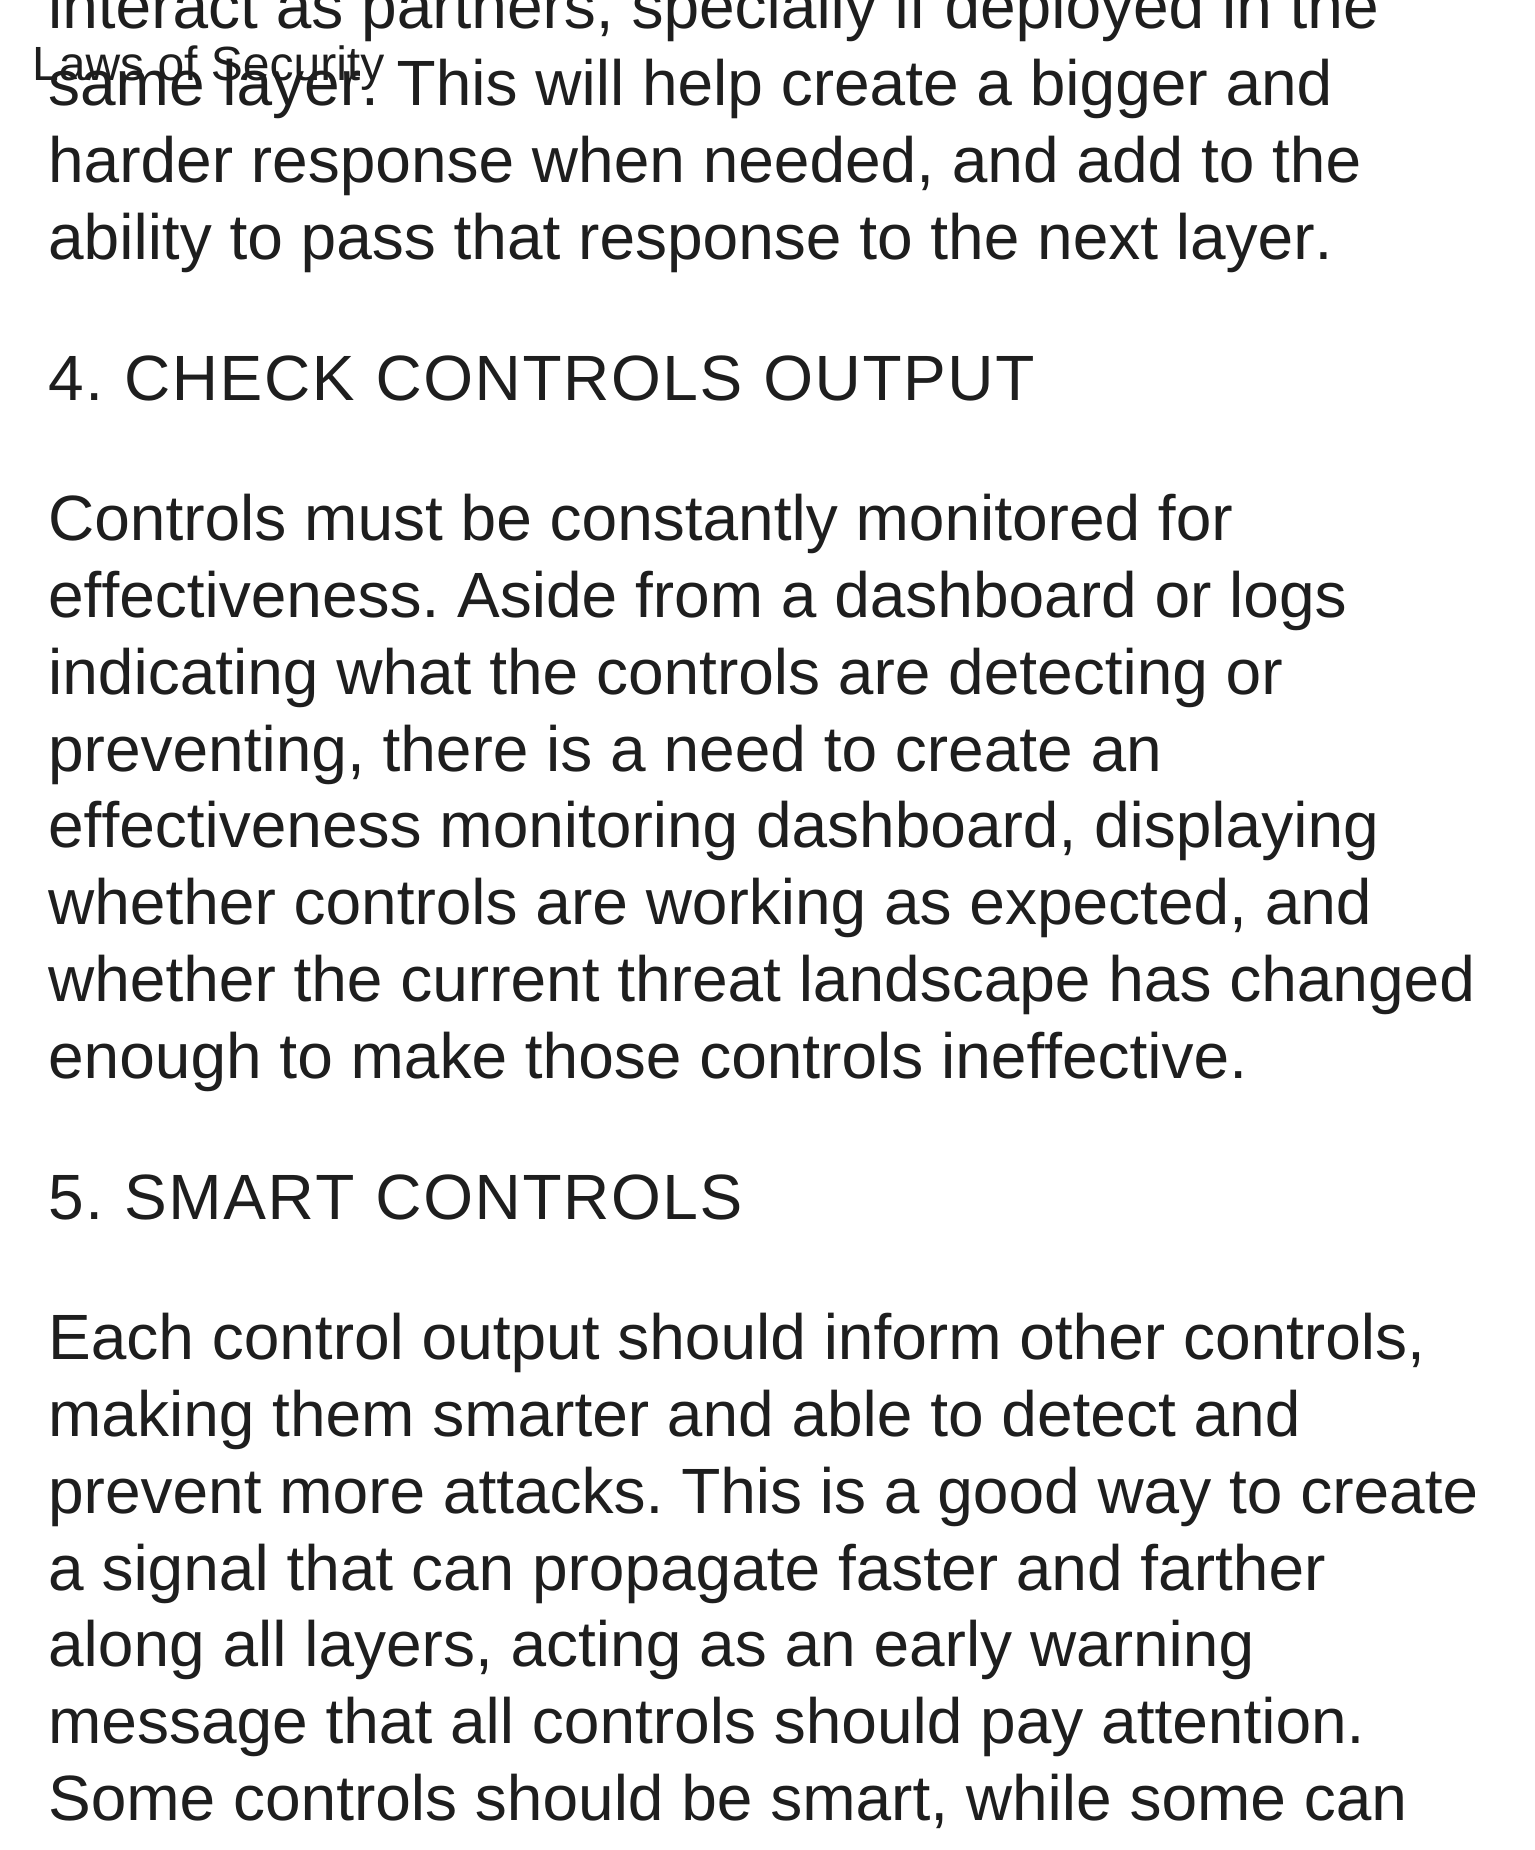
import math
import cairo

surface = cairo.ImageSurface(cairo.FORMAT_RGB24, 1535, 1850)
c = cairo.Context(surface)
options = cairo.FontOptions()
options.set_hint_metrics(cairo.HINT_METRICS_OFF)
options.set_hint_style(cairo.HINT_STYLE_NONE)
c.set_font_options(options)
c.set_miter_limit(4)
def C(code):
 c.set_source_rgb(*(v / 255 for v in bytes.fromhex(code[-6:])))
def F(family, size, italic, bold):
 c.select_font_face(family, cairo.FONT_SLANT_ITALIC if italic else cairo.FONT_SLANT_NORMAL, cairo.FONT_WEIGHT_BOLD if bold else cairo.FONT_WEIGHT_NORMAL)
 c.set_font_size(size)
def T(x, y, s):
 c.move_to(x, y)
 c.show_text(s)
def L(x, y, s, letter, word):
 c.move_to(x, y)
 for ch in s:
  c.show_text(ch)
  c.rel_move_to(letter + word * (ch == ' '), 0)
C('ffffff')
c.paint()
F('Liberation Sans',64,0,0)
C('1e1e1e')
T(48,28,'interact as partners, specially if deployed in the')
T(48,105,'same layer. This will help create a bigger and')
T(48,182,'harder response when needed, and add to the')
T(48,259,'ability to pass that response to the next layer.')
L(48,400,'4. CHECK CONTROLS OUTPUT',1.6,0)
T(48,540,'Controls must be constantly monitored for')
T(48,617,'effectiveness. Aside from a dashboard or logs')
T(48,694,'indicating what the controls are detecting or')
T(48,771,'preventing, there is a need to create an')
T(48,847,'effectiveness monitoring dashboard, displaying')
T(48,924,'whether controls are working as expected, and')
T(48,1001,'whether the current threat landscape has changed')
T(48,1078,'enough to make those controls ineffective.')
L(48,1219,'5. SMART CONTROLS',1.6,0)
T(48,1359,'Each control output should inform other controls,')
T(48,1436,'making them smarter and able to detect and')
T(48,1513,'prevent more attacks. This is a good way to create')
T(48,1590,'a signal that can propagate faster and farther')
T(48,1666,'along all layers, acting as an early warning')
T(48,1743,'message that all controls should pay attention.')
T(48,1820,'Some controls should be smart, while some can')
F('Liberation Sans',48,0,0)
T(32,80,'Laws of Security')
surface.write_to_png('o.png')
